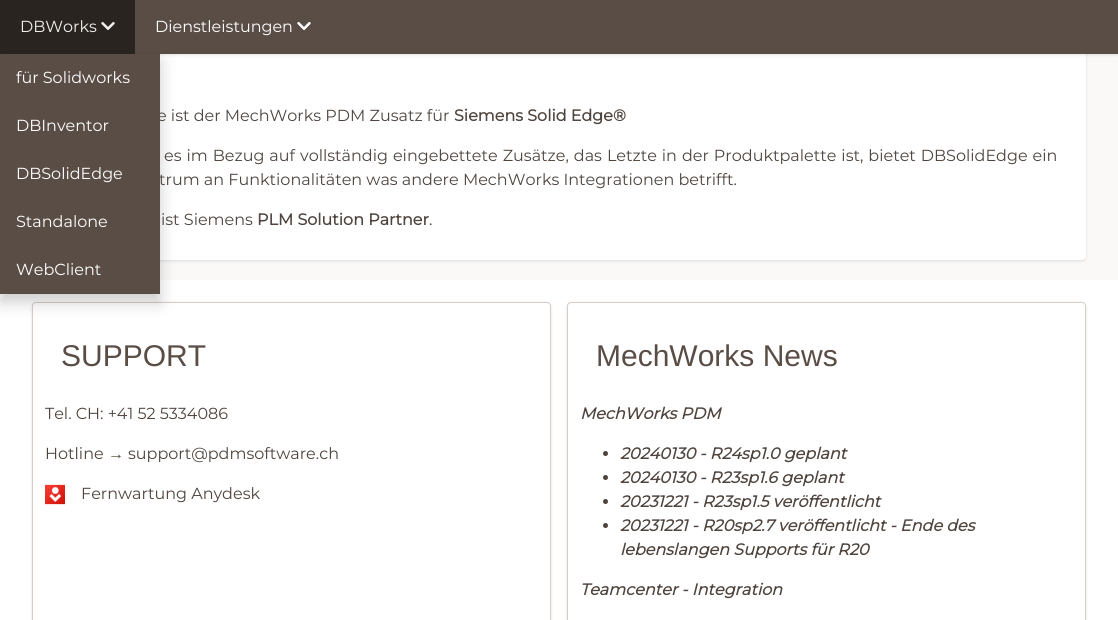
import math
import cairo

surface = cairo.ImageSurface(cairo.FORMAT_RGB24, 1118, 620)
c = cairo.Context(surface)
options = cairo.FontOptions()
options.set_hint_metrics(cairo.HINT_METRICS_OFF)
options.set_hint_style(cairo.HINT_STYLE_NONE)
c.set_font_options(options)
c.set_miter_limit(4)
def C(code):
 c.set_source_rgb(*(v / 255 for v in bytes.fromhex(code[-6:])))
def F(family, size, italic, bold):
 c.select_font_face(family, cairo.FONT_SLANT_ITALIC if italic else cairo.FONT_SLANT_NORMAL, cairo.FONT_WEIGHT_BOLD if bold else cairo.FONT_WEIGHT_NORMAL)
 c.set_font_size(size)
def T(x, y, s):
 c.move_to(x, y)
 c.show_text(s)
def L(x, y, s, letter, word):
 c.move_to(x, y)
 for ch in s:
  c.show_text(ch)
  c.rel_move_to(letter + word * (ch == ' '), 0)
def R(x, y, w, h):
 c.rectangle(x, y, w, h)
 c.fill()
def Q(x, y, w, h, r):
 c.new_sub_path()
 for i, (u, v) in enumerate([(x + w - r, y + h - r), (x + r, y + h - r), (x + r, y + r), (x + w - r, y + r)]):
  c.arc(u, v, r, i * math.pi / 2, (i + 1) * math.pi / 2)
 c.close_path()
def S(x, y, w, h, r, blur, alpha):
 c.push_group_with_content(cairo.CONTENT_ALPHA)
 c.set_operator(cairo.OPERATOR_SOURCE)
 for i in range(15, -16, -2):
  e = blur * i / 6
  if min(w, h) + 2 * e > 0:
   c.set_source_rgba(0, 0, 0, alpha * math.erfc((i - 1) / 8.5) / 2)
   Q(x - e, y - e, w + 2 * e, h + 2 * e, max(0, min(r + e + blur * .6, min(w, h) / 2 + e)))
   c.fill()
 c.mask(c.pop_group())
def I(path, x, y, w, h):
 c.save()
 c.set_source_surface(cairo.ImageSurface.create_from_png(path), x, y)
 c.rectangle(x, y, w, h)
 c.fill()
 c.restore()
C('ffffff')
c.paint()
C('faf9f8')
R(160,54,958,226)
C('000000')
S(32,-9,1054,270,4,1.5,.12)
C('ffffff')
Q(32,-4,1054,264,4)
c.fill()
C('000000')
S(0,1,1118,54,0,1.5,.12)
C('594d45')
R(135,0,983,54)
C('292420')
R(0,0,135,54)
F('Montserrat Thin',16,0,0)
C('f2f0ee')
T(20,32,'DBWorks')
I('1.png',101,21,14,10)
C('000000')
S(32,303,519,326,4,1.5,.12)
C('ffffff')
Q(32.5,302.5,518,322,3.5)
c.fill_preserve()
C('d5cdc8')
c.set_line_width(1)
c.stroke()
C('000000')
S(0,62,160,240,0,8,.2)
C('4f453e')
T(157,121,'e ist der MechWorks PDM Zusatz für')
T(159,185,'trum an Funktionalitäten was andere MechWorks Integrationen betrifft.')
C('594d45')
R(0,54,160,240)
C('ffffff')
T(16,83,'für Solidworks')
T(16,131,'DBInventor')
T(16,179,'DBSolidEdge')
T(16,227,'Standalone')
T(16,275,'WebClient')
T(155,32,'Dienstleistungen')
I('2.png',297,21,14,10)
F('Montserrat',16,0,1)
C('4f453e')
T(454,121,'Siemens Solid Edge®')
F('Montserrat Thin',16,0,0)
L(164,161,'es im Bezug auf vollständig eingebettete Zusätze, das Letzte in der Produktpalette ist, bietet DBSolidEdge ein',0,.8)
T(161,225,'ist Siemens')
F('Montserrat',16,0,1)
T(257,225,'PLM Solution Partner')
F('Montserrat Thin',16,0,0)
T(429,225,'.')
F('Liberation Sans',30,0,0)
C('594d45')
T(61,366,'SUPPORT')
F('Montserrat Thin',16,0,0)
C('4f453e')
T(45,419,'Tel. CH: +41 52 5334086')
T(45,459,'Hotline')
F('Liberation Sans',16,0,0)
T(108,459,'→')
F('Montserrat Thin',16,0,0)
T(128,459,'support@pdmsoftware.ch')
I('3.png',45,484,20,21)
T(81,499,'Fernwartung Anydesk')
C('000000')
S(567,303,519,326,4,1.5,.12)
C('ffffff')
Q(567.5,302.5,518,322,3.5)
c.fill_preserve()
C('d5cdc8')
c.stroke()
F('Liberation Sans',30,0,0)
C('594d45')
T(596,366,'MechWorks News')
F('Montserrat',16,1,1)
C('4f453e')
T(580,419,'MechWorks PDM')
c.new_path()
c.arc(605.5,453.5,2.5,0,2 * math.pi)
c.fill()
T(620,459,'20240130 - R24sp1.0 geplant')
c.new_path()
c.arc(605.5,477.5,2.5,0,2 * math.pi)
c.fill()
T(620,483,'20240130 - R23sp1.6 geplant')
c.new_path()
c.arc(605.5,501.5,2.5,0,2 * math.pi)
c.fill()
T(620,507,'20231221 - R23sp1.5 veröffentlicht')
c.new_path()
c.arc(605.5,525.5,2.5,0,2 * math.pi)
c.fill()
T(620,531,'20231221 - R20sp2.7 veröffentlicht - Ende des')
T(620,555,'lebenslangen Supports für R20')
T(580,595,'Teamcenter - Integration')
surface.write_to_png('o.png')
